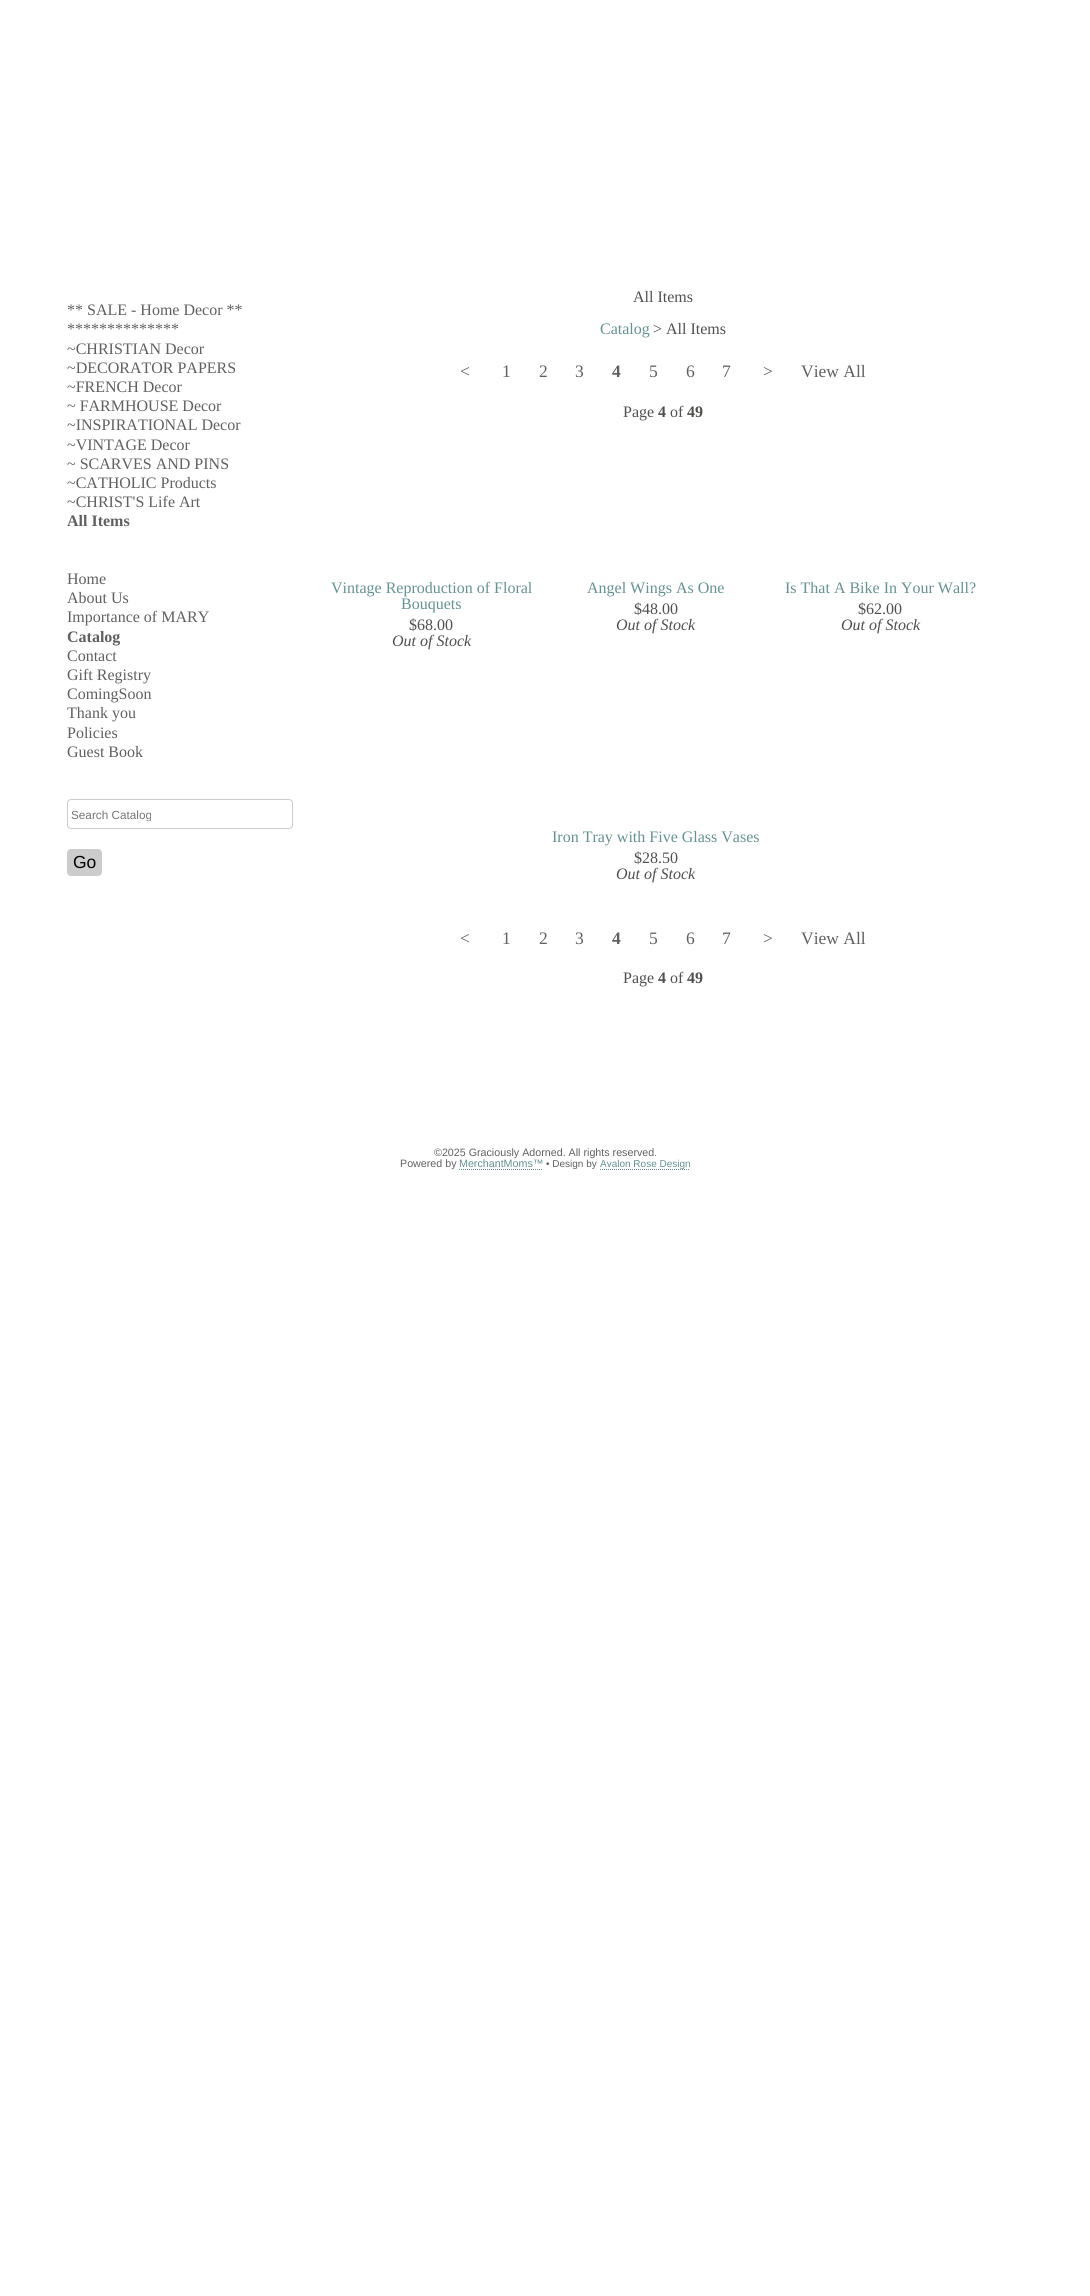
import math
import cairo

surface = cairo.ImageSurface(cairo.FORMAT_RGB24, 1090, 2296)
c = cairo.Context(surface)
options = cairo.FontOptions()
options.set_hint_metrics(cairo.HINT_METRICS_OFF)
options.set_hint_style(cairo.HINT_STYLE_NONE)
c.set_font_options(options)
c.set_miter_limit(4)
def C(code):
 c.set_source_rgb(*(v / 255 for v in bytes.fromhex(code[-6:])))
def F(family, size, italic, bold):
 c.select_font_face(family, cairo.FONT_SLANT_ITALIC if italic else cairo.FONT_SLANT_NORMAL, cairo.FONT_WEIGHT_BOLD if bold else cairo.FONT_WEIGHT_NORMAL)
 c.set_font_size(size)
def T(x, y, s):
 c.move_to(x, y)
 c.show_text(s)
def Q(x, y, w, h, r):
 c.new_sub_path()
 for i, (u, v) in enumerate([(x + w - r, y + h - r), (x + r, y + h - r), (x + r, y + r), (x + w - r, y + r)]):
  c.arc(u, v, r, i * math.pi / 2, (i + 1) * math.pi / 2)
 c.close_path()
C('ffffff')
c.paint()
F('Liberation Serif',16,0,0)
C('606060')
T(67,315,'** SALE - Home Decor **')
T(67,334,'**************')
T(67,354,'~CHRISTIAN Decor')
T(67,373,'~DECORATOR PAPERS')
T(67,392,'~FRENCH Decor')
T(67,411,'~ FARMHOUSE Decor')
T(67,430,'~INSPIRATIONAL Decor')
T(67,450,'~VINTAGE Decor')
T(67,469,'~ SCARVES AND PINS')
T(67,488,'~CATHOLIC Products')
T(67,507,'~CHRIST\'S Life Art')
F('Liberation Serif',16,0,1)
T(67,526,'All Items')
F('Liberation Serif',16,0,0)
T(67,584,'Home')
T(67,603,'About Us')
T(67,622,'Importance of MARY')
F('Liberation Serif',16,0,1)
T(67,642,'Catalog')
F('Liberation Serif',16,0,0)
T(67,661,'Contact')
T(67,680,'Gift Registry')
T(67,699,'ComingSoon')
T(67,718,'Thank you')
T(67,738,'Policies')
T(67,757,'Guest Book')
Q(67.5,799.5,225,29,3.5)
C('cccccc')
c.set_line_width(1)
c.stroke()
c.save()
c.rectangle(71,808,218,13)
c.clip()
F('Liberation Sans',11.75,0,0)
C('757575')
T(71,819,'Search Catalog')
c.restore()
Q(67.5,849.5,34,26,3.5)
c.fill_preserve()
c.stroke()
F('Liberation Sans',17.5,0,0)
C('000000')
T(73,868,'Go')
F('Liberation Serif',16,0,0)
C('50504e')
T(633,302,'All Items')
C('659192')
T(600,334,'Catalog')
C('50504e')
T(653,334,'> All Items')
F('Liberation Serif',17.5,0,0)
C('606060')
T(460,377,'<')
T(502,377,'1')
T(539,377,'2')
T(575,377,'3')
F('Liberation Serif',17.5,0,1)
T(612,377,'4')
F('Liberation Serif',17.5,0,0)
T(649,377,'5')
T(686,377,'6')
T(722,377,'7')
T(763,377,'>')
T(801,377,'View All')
F('Liberation Serif',16,0,0)
C('50504e')
T(623,417,'Page')
F('Liberation Serif',16,0,1)
T(658,417,'4')
F('Liberation Serif',16,0,0)
T(670,417,'of')
F('Liberation Serif',16,0,1)
T(687,417,'49')
F('Liberation Serif',16,0,0)
C('659192')
T(331,593,'Vintage Reproduction of Floral')
T(401,609,'Bouquets')
C('50504e')
T(409,630,'$68.00')
F('Liberation Serif',16,1,0)
T(392,646,'Out of Stock')
F('Liberation Serif',16,0,0)
C('659192')
T(587,593,'Angel Wings As One')
C('50504e')
T(634,614,'$48.00')
F('Liberation Serif',16,1,0)
T(616,630,'Out of Stock')
F('Liberation Serif',16,0,0)
C('659192')
T(785,593,'Is That A Bike In Your Wall?')
C('50504e')
T(858,614,'$62.00')
F('Liberation Serif',16,1,0)
T(841,630,'Out of Stock')
F('Liberation Serif',16,0,0)
C('659192')
T(552,842,'Iron Tray with Five Glass Vases')
C('50504e')
T(634,863,'$28.50')
F('Liberation Serif',16,1,0)
T(616,879,'Out of Stock')
F('Liberation Serif',17.5,0,0)
C('606060')
T(460,944,'<')
T(502,944,'1')
T(539,944,'2')
T(575,944,'3')
F('Liberation Serif',17.5,0,1)
T(612,944,'4')
F('Liberation Serif',17.5,0,0)
T(649,944,'5')
T(686,944,'6')
T(722,944,'7')
T(763,944,'>')
T(801,944,'View All')
F('Liberation Serif',16,0,0)
C('50504e')
T(623,983,'Page')
F('Liberation Serif',16,0,1)
T(658,983,'4')
F('Liberation Serif',16,0,0)
T(670,983,'of')
F('Liberation Serif',16,0,1)
T(687,983,'49')
F('Liberation Sans',10.7,0,0)
C('606060')
T(434,1156,'©2025 Graciously Adorned. All rights reserved.')
T(400,1167,'Powered by')
c.new_path()
c.move_to(459,1169.5)
c.line_to(543,1169.5)
C('659192')
c.set_dash([1,1])
c.stroke()
T(459,1167,'MerchantMoms™')
F('Liberation Sans',10,0,0)
C('606060')
T(546,1167,'• Design by')
c.new_path()
c.move_to(600,1169.5)
c.line_to(690,1169.5)
C('659192')
c.stroke()
T(600,1167,'Avalon Rose Design')
surface.write_to_png('o.png')
